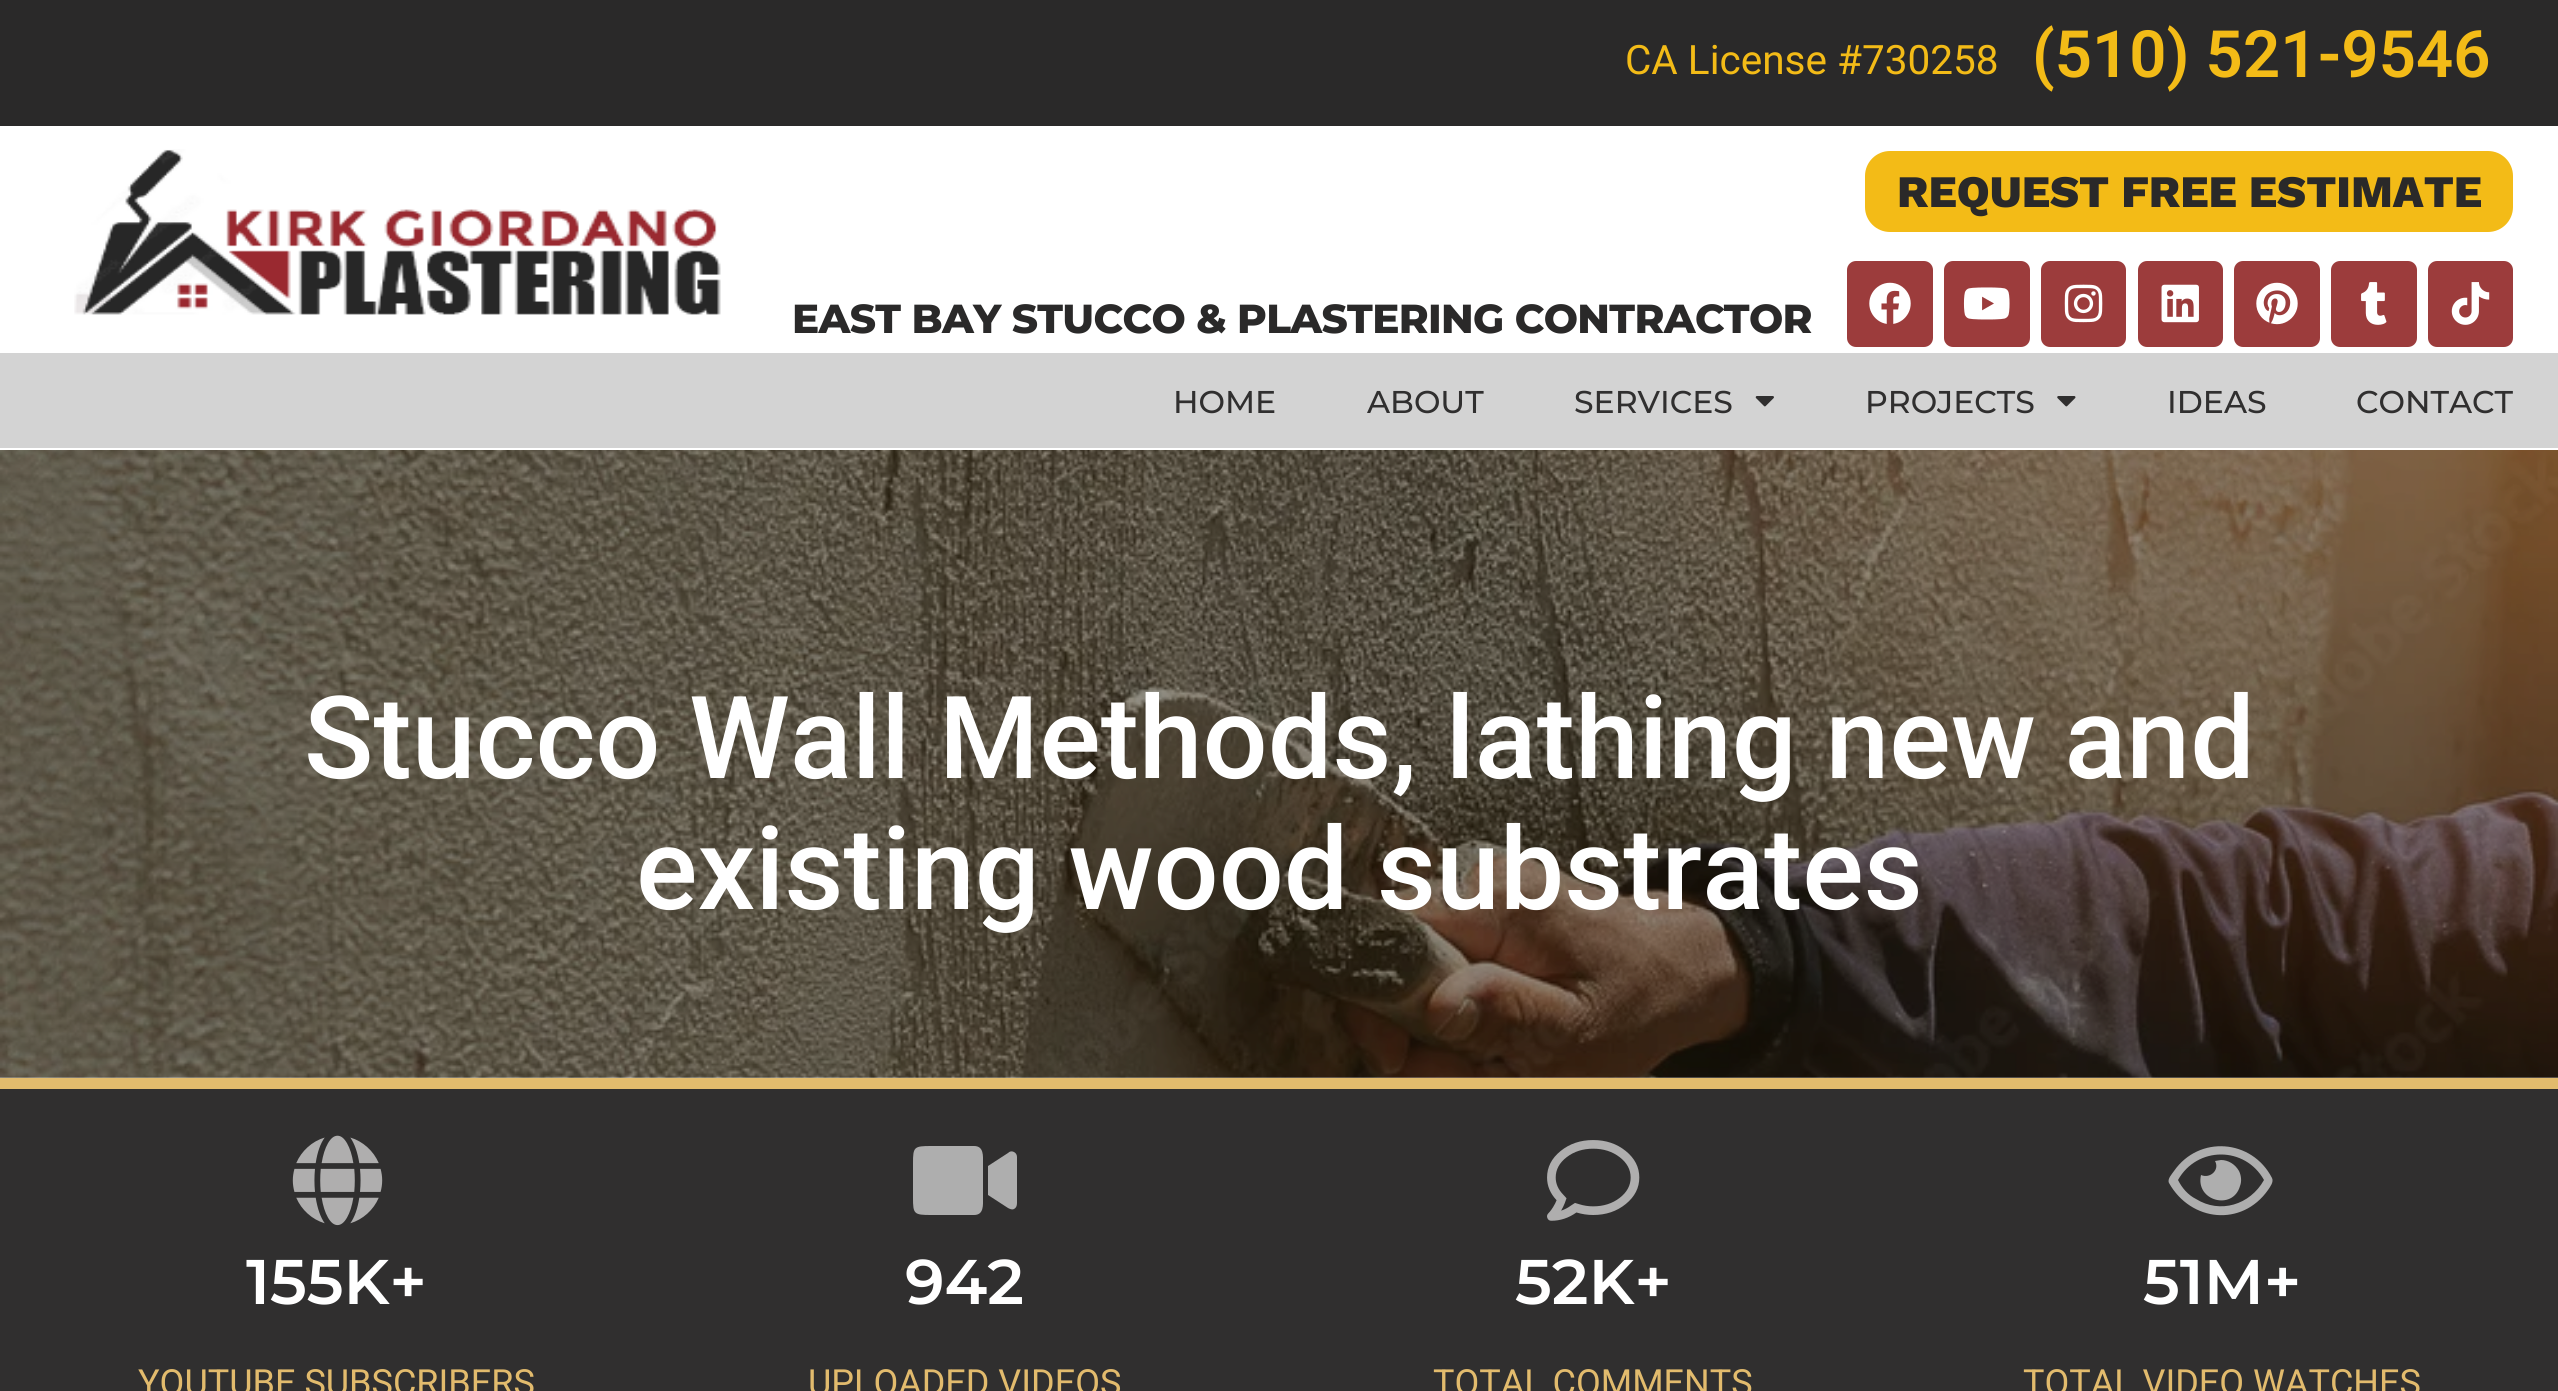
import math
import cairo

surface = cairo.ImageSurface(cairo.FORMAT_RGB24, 2558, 1391)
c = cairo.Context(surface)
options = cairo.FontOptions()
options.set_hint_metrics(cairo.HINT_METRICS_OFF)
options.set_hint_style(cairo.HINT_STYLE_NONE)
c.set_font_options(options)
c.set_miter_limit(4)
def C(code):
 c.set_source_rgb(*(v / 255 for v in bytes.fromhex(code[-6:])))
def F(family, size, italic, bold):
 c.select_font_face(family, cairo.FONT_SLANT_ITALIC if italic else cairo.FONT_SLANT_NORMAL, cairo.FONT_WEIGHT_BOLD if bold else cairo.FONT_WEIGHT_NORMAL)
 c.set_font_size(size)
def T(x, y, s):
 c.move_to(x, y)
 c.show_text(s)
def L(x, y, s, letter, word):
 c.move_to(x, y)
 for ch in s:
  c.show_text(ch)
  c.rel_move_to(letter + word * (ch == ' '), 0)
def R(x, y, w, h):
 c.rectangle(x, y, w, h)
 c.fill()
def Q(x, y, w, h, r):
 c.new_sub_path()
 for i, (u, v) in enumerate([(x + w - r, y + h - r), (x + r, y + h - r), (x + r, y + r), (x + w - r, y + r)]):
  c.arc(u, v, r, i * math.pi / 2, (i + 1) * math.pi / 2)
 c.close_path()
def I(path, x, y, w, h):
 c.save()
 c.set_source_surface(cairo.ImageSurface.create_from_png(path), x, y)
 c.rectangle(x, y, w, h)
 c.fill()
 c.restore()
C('ffffff')
c.paint()
C('2a2929')
R(0,0,2558,126)
F('Roboto',40.5,0,0)
C('f3bb17')
T(1625,74,'CA License #730258')
F('Roboto SemiBold',65.25,0,0)
T(2032,77,'(510) 521-9546')
I('1.png',74,149,647,166)
Q(1865,151,648,81,25)
c.fill()
F('Work Sans ExtraBold',45,0,0)
C('2a2929')
T(1897,207,'REQUEST FREE ESTIMATE')
F('Montserrat ExtraBold',40.5,0,0)
L(792,333,'EAST BAY STUCCO & PLASTERING CONTRACTOR',-.65,0)
C('9c3c3c')
Q(1847,261,86,86,9)
c.fill()
I('2.png',1869,282,42,42)
Q(1944,261,86,86,9)
c.fill()
I('3.png',1963,287,47,33)
Q(2041,261,85,86,9)
c.fill()
I('4.png',2064,284,39,39)
Q(2138,261,85,86,9)
c.fill()
I('5.png',2161,284,38,39)
Q(2234,261,86,86,9)
c.fill()
I('6.png',2256,282,42,43)
Q(2331,261,86,86,9)
c.fill()
I('7.png',2361,282,26,43)
Q(2428,261,85,86,9)
c.fill()
I('8.png',2451,282,39,43)
C('d3d3d3')
R(0,353,2558,95)
F('Montserrat Medium',31.5,0,0)
C('302f2f')
T(1173,413,'HOME')
T(1367,413,'ABOUT')
T(1574,413,'SERVICES')
I('9.png',1755,396,19,11)
T(1865,413,'PROJECTS')
I('10.png',2057,396,19,11)
T(2167,413,'IDEAS')
T(2356,413,'CONTACT')
I('11.png',0,450,2558,628)
F('Roboto Medium',114.75,0,0)
C('ffffff')
T(304,778,'Stucco Wall Methods, lathing new and')
T(636,909,'existing wood substrates')
C('302f2f')
R(0,1089,2558,302)
C('e2bb6d')
R(0,1078,2558,11)
I('12.png',292,1135,91,91)
F('Montserrat SemiBold',63,0,0)
C('ffffff')
T(246,1304,'155K+')
F('Roboto',36,0,0)
C('e2bb6d')
T(138,1395,'YOUTUBE SUBSCRIBERS')
C('aeaeae')
c.new_path()
c.move_to(974,1146)
c.curve_to(984,1146,983,1156,983,1163)
c.line_to(983,1198)
c.curve_to(983,1205,984,1215,974,1215)
c.line_to(931,1215)
c.curve_to(914,1215,913,1214,913,1198)
c.line_to(913,1163)
c.curve_to(913,1147,914,1146,931,1146)
c.close_path()
c.move_to(1008,1153)
c.curve_to(1010,1151,1012,1151,1014,1152)
c.curve_to(1016,1153,1017,1155,1017,1157)
c.line_to(1017,1203)
c.curve_to(1017,1206,1016,1208,1014,1209)
c.curve_to(1012,1210,1010,1209,1008,1208)
c.line_to(988,1195)
c.line_to(988,1166)
c.close_path()
c.fill()
F('Montserrat SemiBold',63,0,0)
C('ffffff')
T(905,1304,'942')
F('Roboto',36,0,0)
C('e2bb6d')
T(808,1395,'UPLOADED VIDEOS')
I('13.png',1547,1140,93,81)
F('Montserrat SemiBold',63,0,0)
C('ffffff')
T(1515,1304,'52K+')
F('Roboto',36,0,0)
C('e2bb6d')
T(1433,1395,'TOTAL COMMENTS')
C('aeaeae')
c.new_path()
c.move_to(2221,1160)
c.curve_to(2228,1160,2235,1164,2239,1171)
c.curve_to(2241,1175,2242,1181,2240,1186)
c.curve_to(2233,1211,2195,1201,2201,1175)
c.curve_to(2210,1179,2220,1170,2215,1161)
c.close_path()
c.move_to(2272,1178)
c.curve_to(2274,1182,2270,1187,2268,1190)
c.curve_to(2242,1227,2191,1222,2169,1183)
c.curve_to(2167,1179,2172,1174,2174,1171)
c.curve_to(2199,1135,2252,1139,2272,1178)
c.close_path()
c.move_to(2196,1199)
c.curve_to(2220,1214,2250,1205,2264,1180)
c.curve_to(2245,1146,2197,1146,2178,1180)
c.curve_to(2182,1188,2188,1195,2196,1199)
c.close_path()
c.fill()
F('Montserrat SemiBold',63,0,0)
C('ffffff')
T(2143,1304,'51M+')
F('Roboto',36,0,0)
C('e2bb6d')
T(2023,1395,'TOTAL VIDEO WATCHES')
surface.write_to_png('o.png')
